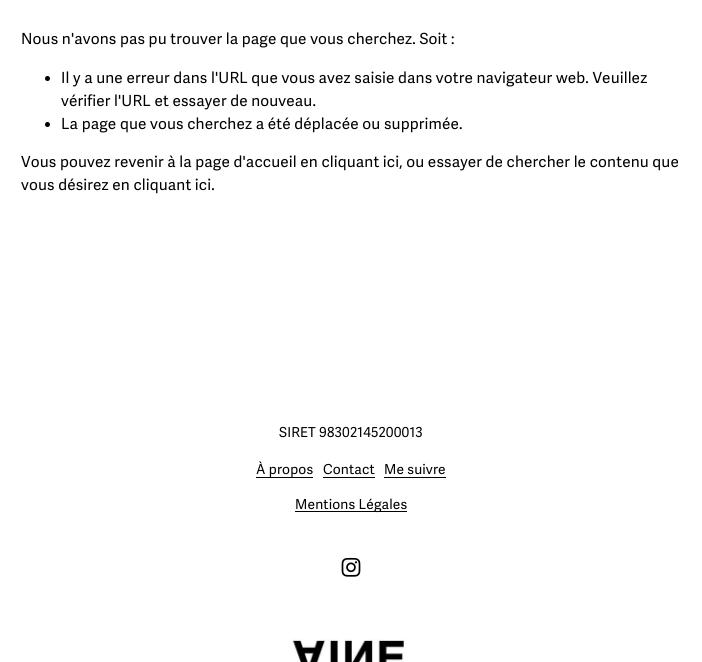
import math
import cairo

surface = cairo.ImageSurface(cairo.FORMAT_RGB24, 702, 662)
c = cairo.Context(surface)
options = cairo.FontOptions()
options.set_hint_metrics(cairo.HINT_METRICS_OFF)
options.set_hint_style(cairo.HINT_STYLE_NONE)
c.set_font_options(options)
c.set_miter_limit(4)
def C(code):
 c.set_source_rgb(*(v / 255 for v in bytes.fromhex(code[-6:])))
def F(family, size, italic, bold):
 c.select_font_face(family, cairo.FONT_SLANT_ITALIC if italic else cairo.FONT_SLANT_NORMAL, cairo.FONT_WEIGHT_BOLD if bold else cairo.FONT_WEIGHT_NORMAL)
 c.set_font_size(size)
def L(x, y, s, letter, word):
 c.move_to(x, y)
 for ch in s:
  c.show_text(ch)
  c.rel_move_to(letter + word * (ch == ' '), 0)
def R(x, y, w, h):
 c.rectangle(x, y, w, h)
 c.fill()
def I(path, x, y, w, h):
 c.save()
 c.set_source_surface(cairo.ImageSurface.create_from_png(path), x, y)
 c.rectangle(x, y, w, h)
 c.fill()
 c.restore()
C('ffffff')
c.paint()
F('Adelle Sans',15.35,0,0)
C('000000')
L(21,44,'Nous n\'avons pas pu trouver la page que vous cherchez. Soit :',.15,0)
c.new_path()
c.arc(47.5,78.5,2.5,0,2 * math.pi)
c.fill()
L(61,83,'Il y a une erreur dans l\'URL que vous avez saisie dans votre navigateur web. Veuillez',.15,0)
L(61,106,'vérifier l\'URL et essayer de nouveau.',.15,0)
c.new_path()
c.arc(47.5,124.5,2.5,0,2 * math.pi)
c.fill()
L(61,129,'La page que vous cherchez a été déplacée ou supprimée.',.15,0)
L(21,167,'Vous pouvez revenir à la page d\'accueil en cliquant ici, ou essayer de chercher le contenu que',.15,0)
L(21,190,'vous désirez en cliquant ici.',.15,0)
F('Adelle Sans',13.75,0,0)
L(279,437,'SIRET 98302145200013',.15,0)
L(256,474,'À propos',.15,0)
R(256,477,57,1)
L(323,474,'Contact',.15,0)
R(323,477,52,1)
L(384,474,'Me suivre',.15,0)
R(384,477,62,1)
R(295,511,112,1)
L(295,509,'Mentions Légales',.15,0)
I('1.png',341,557,20,20)
I('2.png',292,639,112,23)
surface.write_to_png('o.png')
